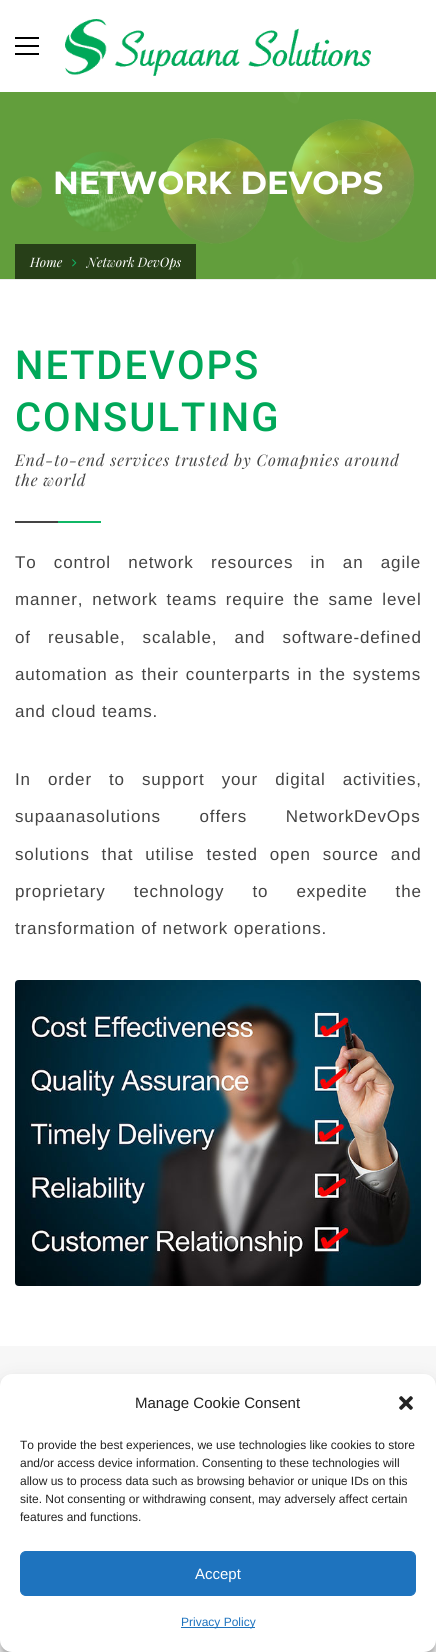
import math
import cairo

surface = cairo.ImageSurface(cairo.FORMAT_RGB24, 436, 1652)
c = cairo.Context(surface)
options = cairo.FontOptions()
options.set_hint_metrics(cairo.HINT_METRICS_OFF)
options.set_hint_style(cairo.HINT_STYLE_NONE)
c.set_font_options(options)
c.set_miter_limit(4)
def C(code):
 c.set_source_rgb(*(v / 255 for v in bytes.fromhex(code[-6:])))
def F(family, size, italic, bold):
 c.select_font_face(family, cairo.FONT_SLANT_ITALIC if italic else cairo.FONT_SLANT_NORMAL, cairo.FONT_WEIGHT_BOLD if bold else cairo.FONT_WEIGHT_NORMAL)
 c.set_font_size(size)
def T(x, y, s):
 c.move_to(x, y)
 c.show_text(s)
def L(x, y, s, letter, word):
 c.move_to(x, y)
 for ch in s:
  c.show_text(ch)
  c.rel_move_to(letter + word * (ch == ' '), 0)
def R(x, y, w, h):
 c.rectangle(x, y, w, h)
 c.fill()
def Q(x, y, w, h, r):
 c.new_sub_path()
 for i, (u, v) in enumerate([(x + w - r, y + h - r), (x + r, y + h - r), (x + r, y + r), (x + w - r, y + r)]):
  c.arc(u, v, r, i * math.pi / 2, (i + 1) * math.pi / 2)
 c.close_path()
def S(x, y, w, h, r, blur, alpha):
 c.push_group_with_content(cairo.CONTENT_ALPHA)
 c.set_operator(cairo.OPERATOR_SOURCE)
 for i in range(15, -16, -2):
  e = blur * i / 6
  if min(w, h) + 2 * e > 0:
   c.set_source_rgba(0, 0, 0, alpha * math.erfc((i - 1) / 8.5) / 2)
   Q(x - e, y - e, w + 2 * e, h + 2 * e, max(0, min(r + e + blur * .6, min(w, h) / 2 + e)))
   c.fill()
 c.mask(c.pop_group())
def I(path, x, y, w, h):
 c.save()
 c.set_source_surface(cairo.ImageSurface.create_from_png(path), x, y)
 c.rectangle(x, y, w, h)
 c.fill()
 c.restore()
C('ffffff')
c.paint()
C('000000')
R(15,37,24,2)
R(15,45,24,2)
R(15,53,24,2)
I('1.png',65,19,306,57)
C('eeeeee')
R(0,279,436,1)
I('2.png',0,92,436,187)
F('Montserrat',32,0,1)
C('ffffff')
T(53,194,'NETWORK DEVOPS')
C('273f18')
R(15,244,181,35)
F('Playfair Display',13,1,0)
C('ffffff')
T(30,267,'Home')
I('3.png',72,259,5,8)
T(87,267,'Network DevOps')
F('Roboto Medium',40,0,0)
C('00a859')
L(15,379,'NETDEVOPS',2,0)
L(15,431,'CONSULTING',2,0)
F('Playfair Display',16,1,0)
C('444444')
L(15,466,'End-to-end services trusted by Comapnies around',.85,0)
L(15,486,'the world',.85,0)
R(15,521,43,2)
C('10b765')
R(58,521,43,2)
F('Liberation Sans',17,0,0)
C('444444')
L(15,568,'To control network resources in an agile',.85,11.75)
L(15,605,'manner, network teams require the same level',.85,3.25)
L(15,643,'of reusable, scalable, and software-defined',.85,11.5)
L(15,680,'automation as their counterparts in the systems',.85,1.5)
L(15,717,'and cloud teams.',.85,0)
L(15,785,'In order to support your digital activities,',.85,11.5)
L(15,822,'supaanasolutions offers NetworkDevOps',.85,33)
L(15,860,'solutions that utilise tested open source and',.85,6.25)
L(15,897,'proprietary technology to expedite the',.85,22.5)
L(15,934,'transformation of network operations.',.85,0)
I('4.png',15,980,406,306)
C('f7f7f7')
R(0,1346,436,40)
C('000000')
S(0,1380,436,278,12,3,.23)
S(0,1384,436,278,12,10,.19)
C('ffffff')
Q(0,1374,436,278,12)
c.fill()
F('Liberation Sans',15,0,0)
C('222222')
T(135,1408,'Manage Cookie Consent')
I('5.png',399,1396,14,14)
F('Liberation Sans',12,0,0)
T(20,1449,'To provide the best experiences, we use technologies like cookies to store')
T(20,1467,'and/or access device information. Consenting to these technologies will')
T(20,1485,'allow us to process data such as browsing behavior or unique IDs on this')
T(20,1503,'site. Not consenting or withdrawing consent, may adversely affect certain')
T(20,1521,'features and functions.')
C('1e73be')
Q(20.5,1551.5,395,44,5.5)
c.fill_preserve()
c.set_line_width(1)
c.stroke()
F('Liberation Sans',15,0,0)
C('ffffff')
T(195,1579,'Accept')
C('1e73be')
R(181,1627,74,1)
F('Liberation Sans',12,0,0)
T(181,1626,'Privacy Policy')
surface.write_to_png('o.png')
